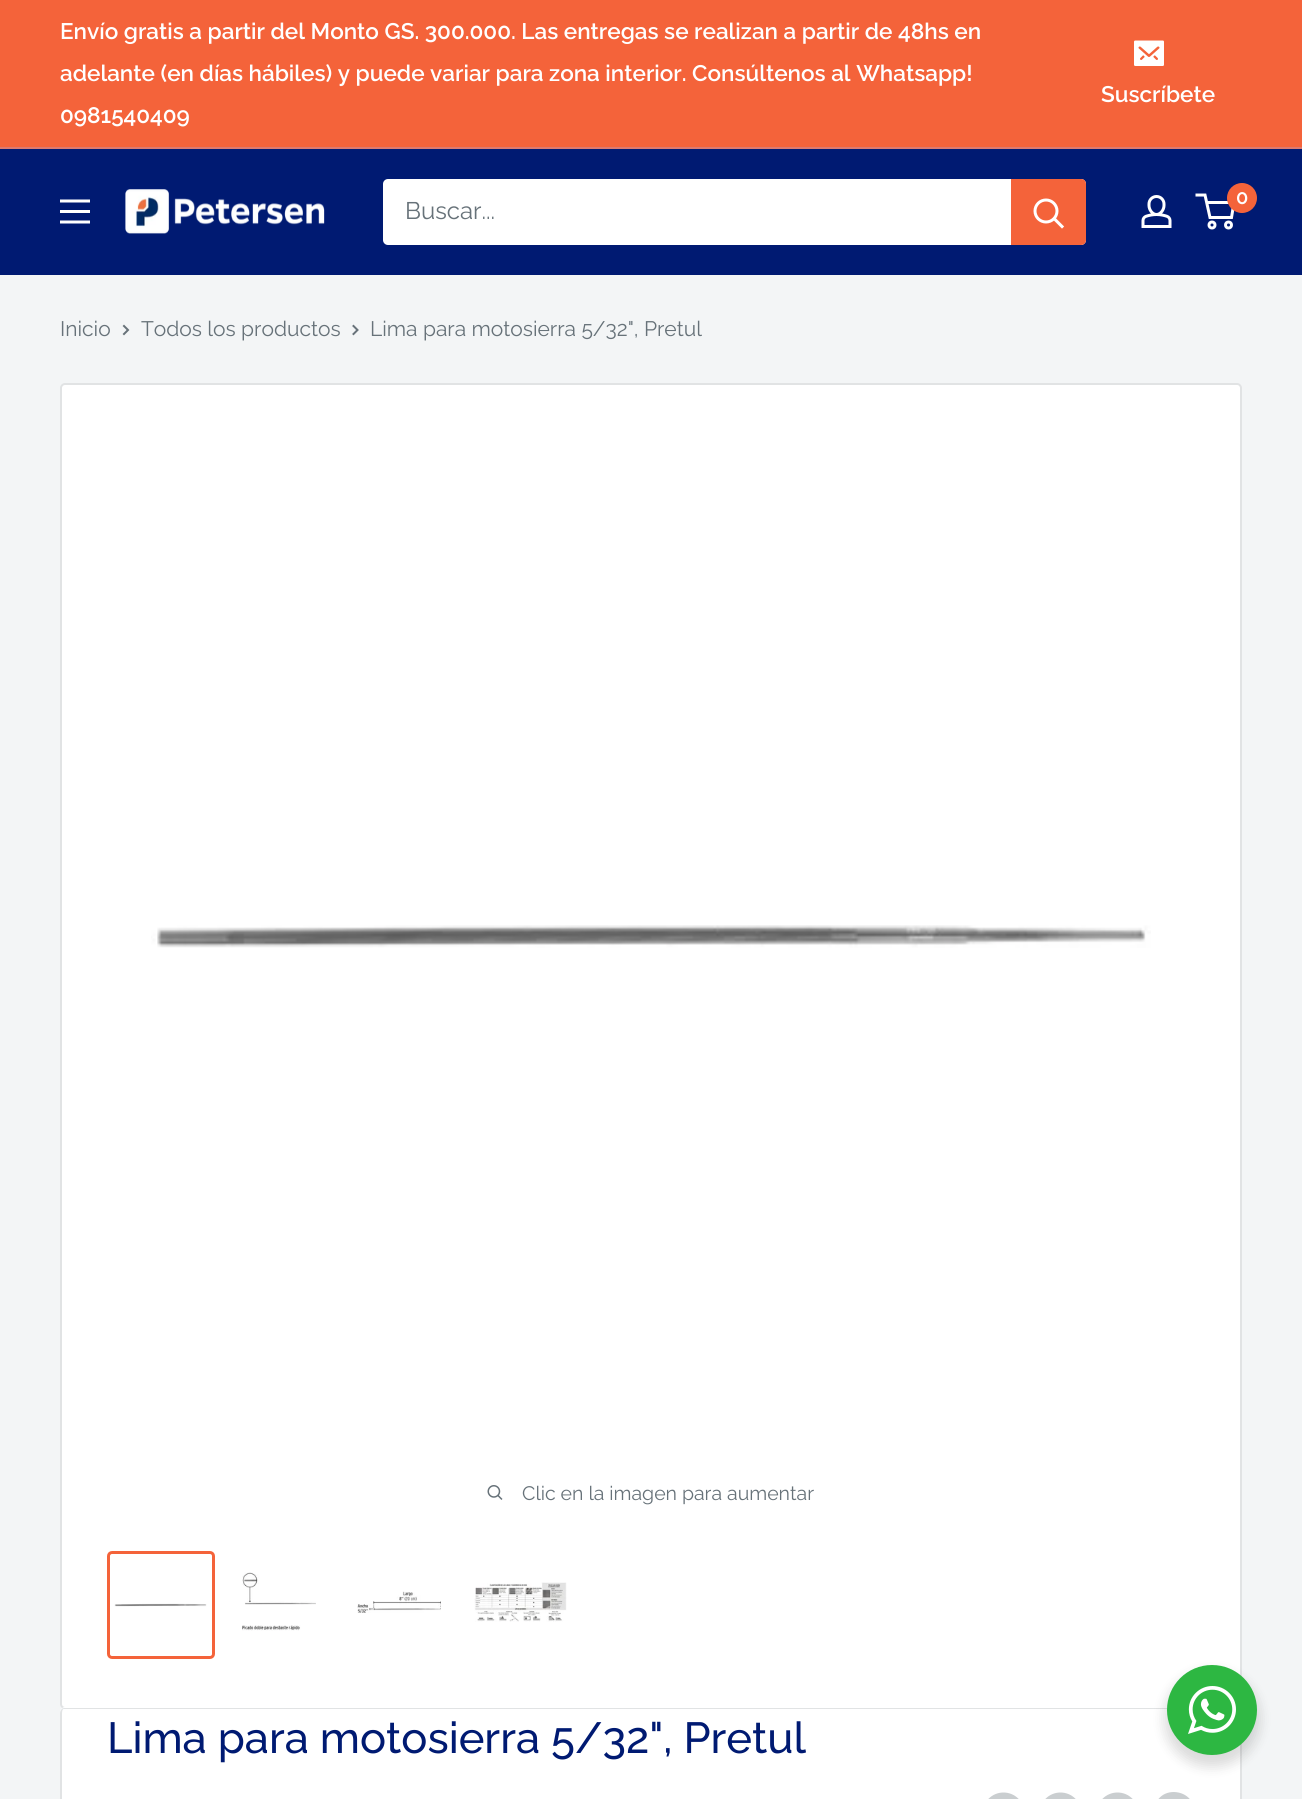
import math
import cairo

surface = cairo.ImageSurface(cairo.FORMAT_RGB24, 1302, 1799)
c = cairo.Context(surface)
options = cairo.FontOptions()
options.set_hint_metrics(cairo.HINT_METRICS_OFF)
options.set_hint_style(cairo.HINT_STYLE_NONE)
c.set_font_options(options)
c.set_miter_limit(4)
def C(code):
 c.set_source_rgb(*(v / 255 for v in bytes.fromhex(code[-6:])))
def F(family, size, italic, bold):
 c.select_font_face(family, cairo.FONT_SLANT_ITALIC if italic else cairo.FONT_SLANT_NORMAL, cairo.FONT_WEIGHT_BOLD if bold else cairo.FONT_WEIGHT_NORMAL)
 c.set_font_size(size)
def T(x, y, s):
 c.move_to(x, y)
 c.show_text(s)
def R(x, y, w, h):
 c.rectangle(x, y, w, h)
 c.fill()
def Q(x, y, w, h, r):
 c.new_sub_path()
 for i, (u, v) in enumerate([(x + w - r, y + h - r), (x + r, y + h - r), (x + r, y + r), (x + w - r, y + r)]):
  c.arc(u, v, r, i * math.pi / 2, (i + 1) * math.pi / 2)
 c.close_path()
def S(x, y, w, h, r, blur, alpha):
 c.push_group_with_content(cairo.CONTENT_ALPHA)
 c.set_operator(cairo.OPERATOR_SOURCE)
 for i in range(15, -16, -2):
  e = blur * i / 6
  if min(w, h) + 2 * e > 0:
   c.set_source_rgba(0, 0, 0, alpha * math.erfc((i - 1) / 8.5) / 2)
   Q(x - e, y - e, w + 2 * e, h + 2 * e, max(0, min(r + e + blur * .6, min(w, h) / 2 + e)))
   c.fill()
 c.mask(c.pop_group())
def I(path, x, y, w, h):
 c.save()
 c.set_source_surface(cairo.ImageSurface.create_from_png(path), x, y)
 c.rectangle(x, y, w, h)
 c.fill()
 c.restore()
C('f3f5f6')
c.paint()
C('f4633a')
R(0,0,1302,147)
C('dc7a70')
R(0,147,1302,2)
F('Raleway SemiBold',22.5,0,0)
C('ffffff')
T(60,39,'Envío gratis a partir del Monto GS. 300.000. Las entregas se realizan a partir de 48hs en')
T(60,81,'adelante (en días hábiles) y puede variar para zona interior. Consúltenos al Whatsapp!')
T(60,123,'0981540409')
I('1.png',1134,40,30,26)
T(1101,102,'Suscríbete')
C('001a72')
R(0,149,1302,126)
I('2.png',60,199,30,25)
I('3.png',125,189,200,45)
C('ffffff')
Q(383,179,703,66,5)
c.fill()
F('Raleway',24,0,0)
C('677279')
T(405,219,'Buscar...')
C('f4633a')
c.new_path()
c.move_to(1011,179)
c.line_to(1081,179)
c.curve_to(1084,179,1086,181,1086,184)
c.line_to(1086,240)
c.curve_to(1086,243,1084,245,1081,245)
c.line_to(1011,245)
c.close_path()
c.fill()
c.new_path()
c.move_to(1062,226.5)
c.line_to(1054.5,219)
C('ffffff')
c.set_line_width(3)
c.set_line_cap(cairo.LINE_CAP_SQUARE)
c.stroke()
c.arc(1046,211,11,0,2 * math.pi)
c.set_line_cap(cairo.LINE_CAP_BUTT)
c.stroke()
I('4.png',1141,195,31,33)
c.arc(1212,225,3,0,2 * math.pi)
c.stroke()
c.arc(1228.5,225,3,0,2 * math.pi)
c.stroke()
c.new_path()
c.move_to(1206.5,202.5)
c.line_to(1234,202.5)
c.line_to(1231.5,217.5)
c.line_to(1210,217.5)
c.line_to(1205,195)
c.line_to(1195.5,195)
c.stroke()
C('f4633a')
c.arc(1242,198,15,0,2 * math.pi)
c.fill()
F('Raleway SemiBold',20,0,0)
C('ffffff')
T(1236,204,'0')
F('Raleway',21,0,0)
C('677279')
T(60,336,'Inicio')
c.new_path()
c.move_to(124,326)
c.line_to(128,330)
c.line_to(124,334)
c.set_line_width(2)
c.set_line_cap(cairo.LINE_CAP_SQUARE)
c.stroke()
T(141,336,'Todos los productos')
c.new_path()
c.move_to(353.5,326)
c.line_to(357.5,330)
c.line_to(353.5,334)
c.stroke()
T(370,336,'Lima para motosierra 5/32", Pretul')
C('ffffff')
Q(61,384,1180,1324,4)
c.fill_preserve()
C('e1e3e4')
c.set_line_cap(cairo.LINE_CAP_BUTT)
c.stroke()
I('5.png',151,925,1000,23)
I('6.png',487,1485,16,15)
F('Raleway',19.5,0,0)
C('677279')
T(522,1500,'Clic en la imagen para aumentar')
Q(108.5,1552.5,105,105,3.5)
C('f4633a')
c.set_line_width(3)
c.stroke()
I('7.png',114,1603,93,4)
I('8.png',242,1572,74,59)
I('9.png',357,1591,84,22)
I('10.png',474,1582,93,40)
C('ffffff')
c.new_path()
c.move_to(65,1707)
c.curve_to(62,1707,60,1710,60,1713)
c.curve_to(60,1711,62,1708,64,1708)
c.line_to(1238,1708)
c.curve_to(1240,1708,1242,1711,1242,1713)
c.curve_to(1242,1710,1240,1707,1237,1707)
c.close_path()
c.fill()
Q(60,1709,1182,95,5)
c.fill()
C('e1e3e4')
c.set_fill_rule(cairo.FILL_RULE_EVEN_ODD)
c.new_path()
c.move_to(64,1708)
c.line_to(1238,1708)
c.curve_to(1240,1708,1242,1711,1242,1713)
c.line_to(1242,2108)
c.curve_to(1242,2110,1240,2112,1238,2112)
c.line_to(64,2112)
c.curve_to(62,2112,60,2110,60,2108)
c.line_to(60,1713)
c.curve_to(60,1711,62,1708,64,1708)
c.close_path()
c.move_to(64,1708)
c.line_to(1238,1708)
c.curve_to(1239,1708,1240,1711,1240,1713)
c.line_to(1240,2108)
c.curve_to(1240,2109,1239,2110,1238,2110)
c.line_to(64,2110)
c.curve_to(63,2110,62,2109,62,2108)
c.line_to(62,1713)
c.curve_to(62,1711,63,1708,64,1708)
c.close_path()
c.fill()
F('Raleway Medium',43.5,0,0)
C('001a72')
T(107,1753,'Lima para motosierra 5/32", Pretul')
I('11.png',988,1792,31,7)
I('11.png',1045,1792,31,7)
I('11.png',1102,1792,31,7)
C('caced0')
c.set_fill_rule(cairo.FILL_RULE_WINDING)
c.new_path()
c.move_to(1174,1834)
c.curve_to(1147,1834,1147,1792,1174,1792)
c.curve_to(1202,1793,1202,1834,1174,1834)
c.close_path()
c.move_to(1170,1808)
c.line_to(1179,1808)
c.line_to(1174,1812)
c.close_path()
c.move_to(1182,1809)
c.line_to(1182,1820)
c.line_to(1167,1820)
c.line_to(1167,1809)
c.line_to(1174,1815)
c.close_path()
c.move_to(1185,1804)
c.line_to(1164,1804)
c.line_to(1164,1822)
c.line_to(1185,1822)
c.close_path()
c.fill()
C('000000')
S(1164,1671,96,96,48,6,.14)
C('2db742')
c.arc(1212,1710,45,0,2 * math.pi)
c.fill()
I('12.png',1188,1686,48,48)
surface.write_to_png('o.png')
